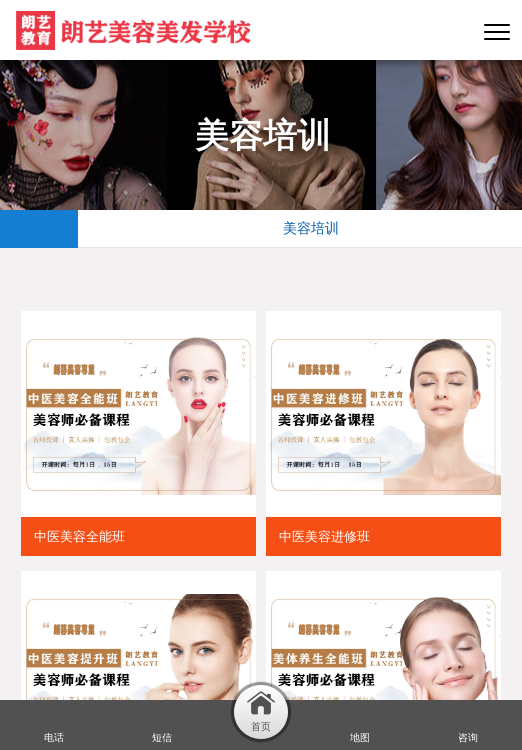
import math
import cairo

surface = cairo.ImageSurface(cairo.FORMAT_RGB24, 522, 750)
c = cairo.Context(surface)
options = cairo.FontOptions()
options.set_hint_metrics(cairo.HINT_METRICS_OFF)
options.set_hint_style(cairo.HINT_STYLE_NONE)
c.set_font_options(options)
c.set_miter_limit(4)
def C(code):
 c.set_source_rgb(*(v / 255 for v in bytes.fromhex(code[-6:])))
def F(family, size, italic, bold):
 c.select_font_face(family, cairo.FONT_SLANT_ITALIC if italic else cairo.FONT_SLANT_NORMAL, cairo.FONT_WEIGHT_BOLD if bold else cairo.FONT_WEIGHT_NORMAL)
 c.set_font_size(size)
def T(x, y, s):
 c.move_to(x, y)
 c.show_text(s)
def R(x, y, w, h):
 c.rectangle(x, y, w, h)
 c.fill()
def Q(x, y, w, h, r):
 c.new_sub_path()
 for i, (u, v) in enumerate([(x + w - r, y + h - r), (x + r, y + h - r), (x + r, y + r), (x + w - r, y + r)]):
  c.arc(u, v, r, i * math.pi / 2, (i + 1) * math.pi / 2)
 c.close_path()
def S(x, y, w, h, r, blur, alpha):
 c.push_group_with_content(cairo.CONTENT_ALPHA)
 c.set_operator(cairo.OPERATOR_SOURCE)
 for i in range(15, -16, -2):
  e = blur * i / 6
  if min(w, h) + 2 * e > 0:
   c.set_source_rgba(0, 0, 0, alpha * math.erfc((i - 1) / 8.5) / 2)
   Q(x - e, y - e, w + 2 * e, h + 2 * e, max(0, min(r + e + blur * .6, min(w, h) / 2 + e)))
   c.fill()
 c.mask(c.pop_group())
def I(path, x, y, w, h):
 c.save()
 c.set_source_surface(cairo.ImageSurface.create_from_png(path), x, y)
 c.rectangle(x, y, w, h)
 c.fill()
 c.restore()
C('ffffff')
c.paint()
I('2.png',0,60,522,150)
c.save()
c.rectangle(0,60,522,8)
c.clip()
C('000000')
S(0,4,522,60,0,3,.3)
c.restore()
I('1.png',16,11,235,39)
C('000000')
Q(484,31,26,2,1)
c.fill()
Q(484,24,26,2,1)
c.fill()
Q(484,38,26,2,1)
c.fill()
F('WenQuanYi Zen Hei',34,0,1)
C('ffffff')
T(195,147,'美容培训')
C('f3f1f1')
R(0,248,522,452)
C('167ed2')
R(0,210,78,38)
C('e5e5e5')
R(78,247,444,1)
F('WenQuanYi Zen Hei Medium',14,0,0)
C('035cac')
T(283,233,'美容培训')
C('ffffff')
R(21,311,235,206)
I('3.png',23,337,233,158)
C('f54f15')
R(21,517,235,39)
F('WenQuanYi Zen Hei Medium',13,0,0)
C('ffffff')
T(34,541,'中医美容全能班')
R(266,311,235,206)
I('4.png',268,338,233,157)
C('f54f15')
R(266,517,235,39)
C('ffffff')
T(279,541,'中医美容进修班')
R(21,571,235,129)
I('5.png',23,594,233,106)
R(266,571,235,115)
I('6.png',268,597,233,103)
C('515151')
R(0,700,522,50)
C('000000')
S(231,682,60,60,30,.5,.4)
gradient = cairo.LinearGradient(261,685,261,739)
gradient.add_color_stop_rgba(0,1,1,1,1)
gradient.add_color_stop_rgba(1,0.851,0.851,0.851,1)
c.set_source(gradient)
c.arc(261,712,27,0,2 * math.pi)
c.fill()
I('7.png',247,691,28,24)
F('WenQuanYi Zen Hei Medium',10,0,0)
C('515151')
T(251,730,'首页')
C('ffffff')
T(44,741,'电话')
T(152,741,'短信')
T(350,741,'地图')
T(458,741,'咨询')
surface.write_to_png('o.png')
